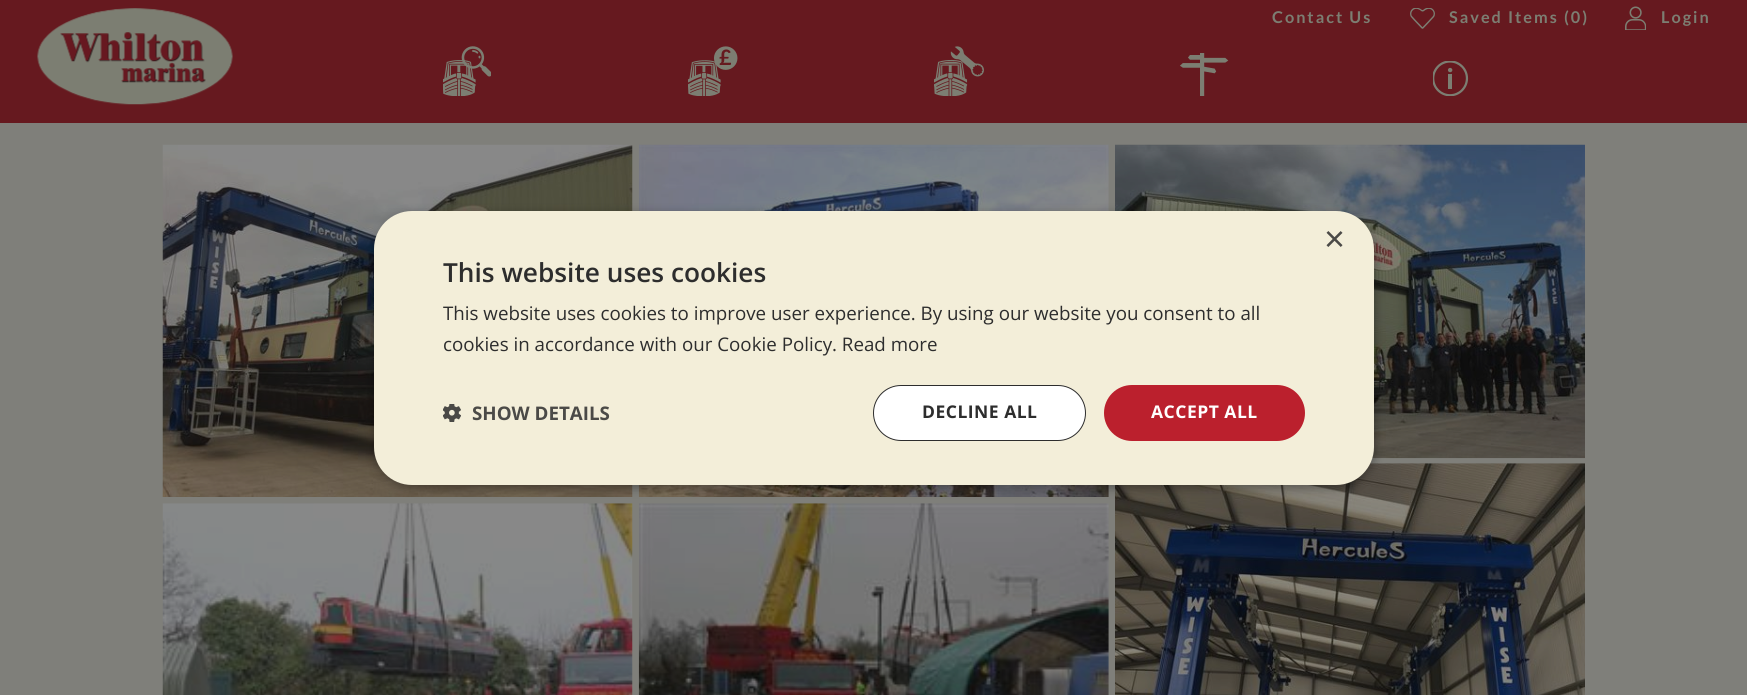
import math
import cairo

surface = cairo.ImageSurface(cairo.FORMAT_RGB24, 1747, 695)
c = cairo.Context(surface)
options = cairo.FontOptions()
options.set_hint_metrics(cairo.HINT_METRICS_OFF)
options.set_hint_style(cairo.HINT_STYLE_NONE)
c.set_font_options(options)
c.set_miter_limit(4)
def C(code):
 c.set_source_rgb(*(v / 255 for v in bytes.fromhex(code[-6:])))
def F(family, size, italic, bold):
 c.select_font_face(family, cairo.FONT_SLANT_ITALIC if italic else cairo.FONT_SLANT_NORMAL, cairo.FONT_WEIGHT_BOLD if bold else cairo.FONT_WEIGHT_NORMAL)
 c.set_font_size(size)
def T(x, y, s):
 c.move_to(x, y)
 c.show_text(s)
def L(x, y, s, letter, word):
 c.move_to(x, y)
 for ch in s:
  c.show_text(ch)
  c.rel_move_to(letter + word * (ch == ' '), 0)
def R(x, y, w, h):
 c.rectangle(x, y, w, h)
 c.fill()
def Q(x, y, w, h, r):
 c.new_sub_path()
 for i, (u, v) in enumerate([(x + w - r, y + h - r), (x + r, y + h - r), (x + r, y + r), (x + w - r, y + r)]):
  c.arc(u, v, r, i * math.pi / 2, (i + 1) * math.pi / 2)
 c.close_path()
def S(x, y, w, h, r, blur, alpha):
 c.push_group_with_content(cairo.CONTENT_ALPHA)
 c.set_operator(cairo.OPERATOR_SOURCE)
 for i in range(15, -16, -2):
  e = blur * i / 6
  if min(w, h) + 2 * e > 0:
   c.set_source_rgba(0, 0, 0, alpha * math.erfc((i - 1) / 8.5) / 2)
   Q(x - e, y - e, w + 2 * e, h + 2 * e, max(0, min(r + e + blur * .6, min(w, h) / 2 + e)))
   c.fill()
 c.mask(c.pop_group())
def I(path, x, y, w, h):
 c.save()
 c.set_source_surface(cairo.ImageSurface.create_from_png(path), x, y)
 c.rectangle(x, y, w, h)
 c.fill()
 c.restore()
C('7f7f7a')
c.paint()
C('66191f')
R(0,0,1747,123)
I('1.png',37,8,196,97)
F('Lato',16.25,0,1)
C('7c7e72')
L(1272,23,'Contact Us',2,0)
I('2.png',1410,8,25,21)
L(1449,23,'Saved Items (0)',2,0)
I('3.png',1625,6,21,24)
L(1661,23,'Login',2,0)
I('4.png',443,46,48,50)
I('5.png',688,46,50,50)
I('6.png',934,46,50,50)
I('7.png',1180,53,49,43)
I('8.png',1433,61,36,35)
I('9.png',162,144,471,353)
I('10.png',638,144,471,353)
I('11.png',1115,144,470,315)
I('12.png',162,503,471,192)
I('13.png',638,503,471,192)
I('14.png',1115,463,470,232)
C('000000')
S(375,214,1000,274,38,5,.35)
C('f3eed9')
Q(374,211,1000,274,38)
c.fill()
F('Liberation Sans',36,0,0)
C('4b4a47')
T(1324,251,'×')
F('Open Sans SemiBold',26.25,0,0)
C('2d2d2d')
T(443,282,'This website uses cookies')
F('Open Sans',18.75,0,0)
T(443,320,'This website uses cookies to improve user experience. By using our website you consent to all')
T(443,351,'cookies in accordance with our Cookie Policy. Read more')
I('15.png',443,404,18,18)
F('Open Sans',18.75,0,1)
C('4b4a47')
T(472,420,'SHOW DETAILS')
C('ffffff')
Q(873.5,385.5,212,55,27.5)
c.fill_preserve()
C('2d2d2d')
c.set_line_width(1)
c.stroke()
F('Open Sans',17.5,0,1)
L(922,418,'DECLINE ALL',.5,0)
C('bb202d')
Q(1104,385,201,56,28)
c.fill()
C('ffffff')
L(1151,418,'ACCEPT ALL',.5,0)
surface.write_to_png('o.png')
